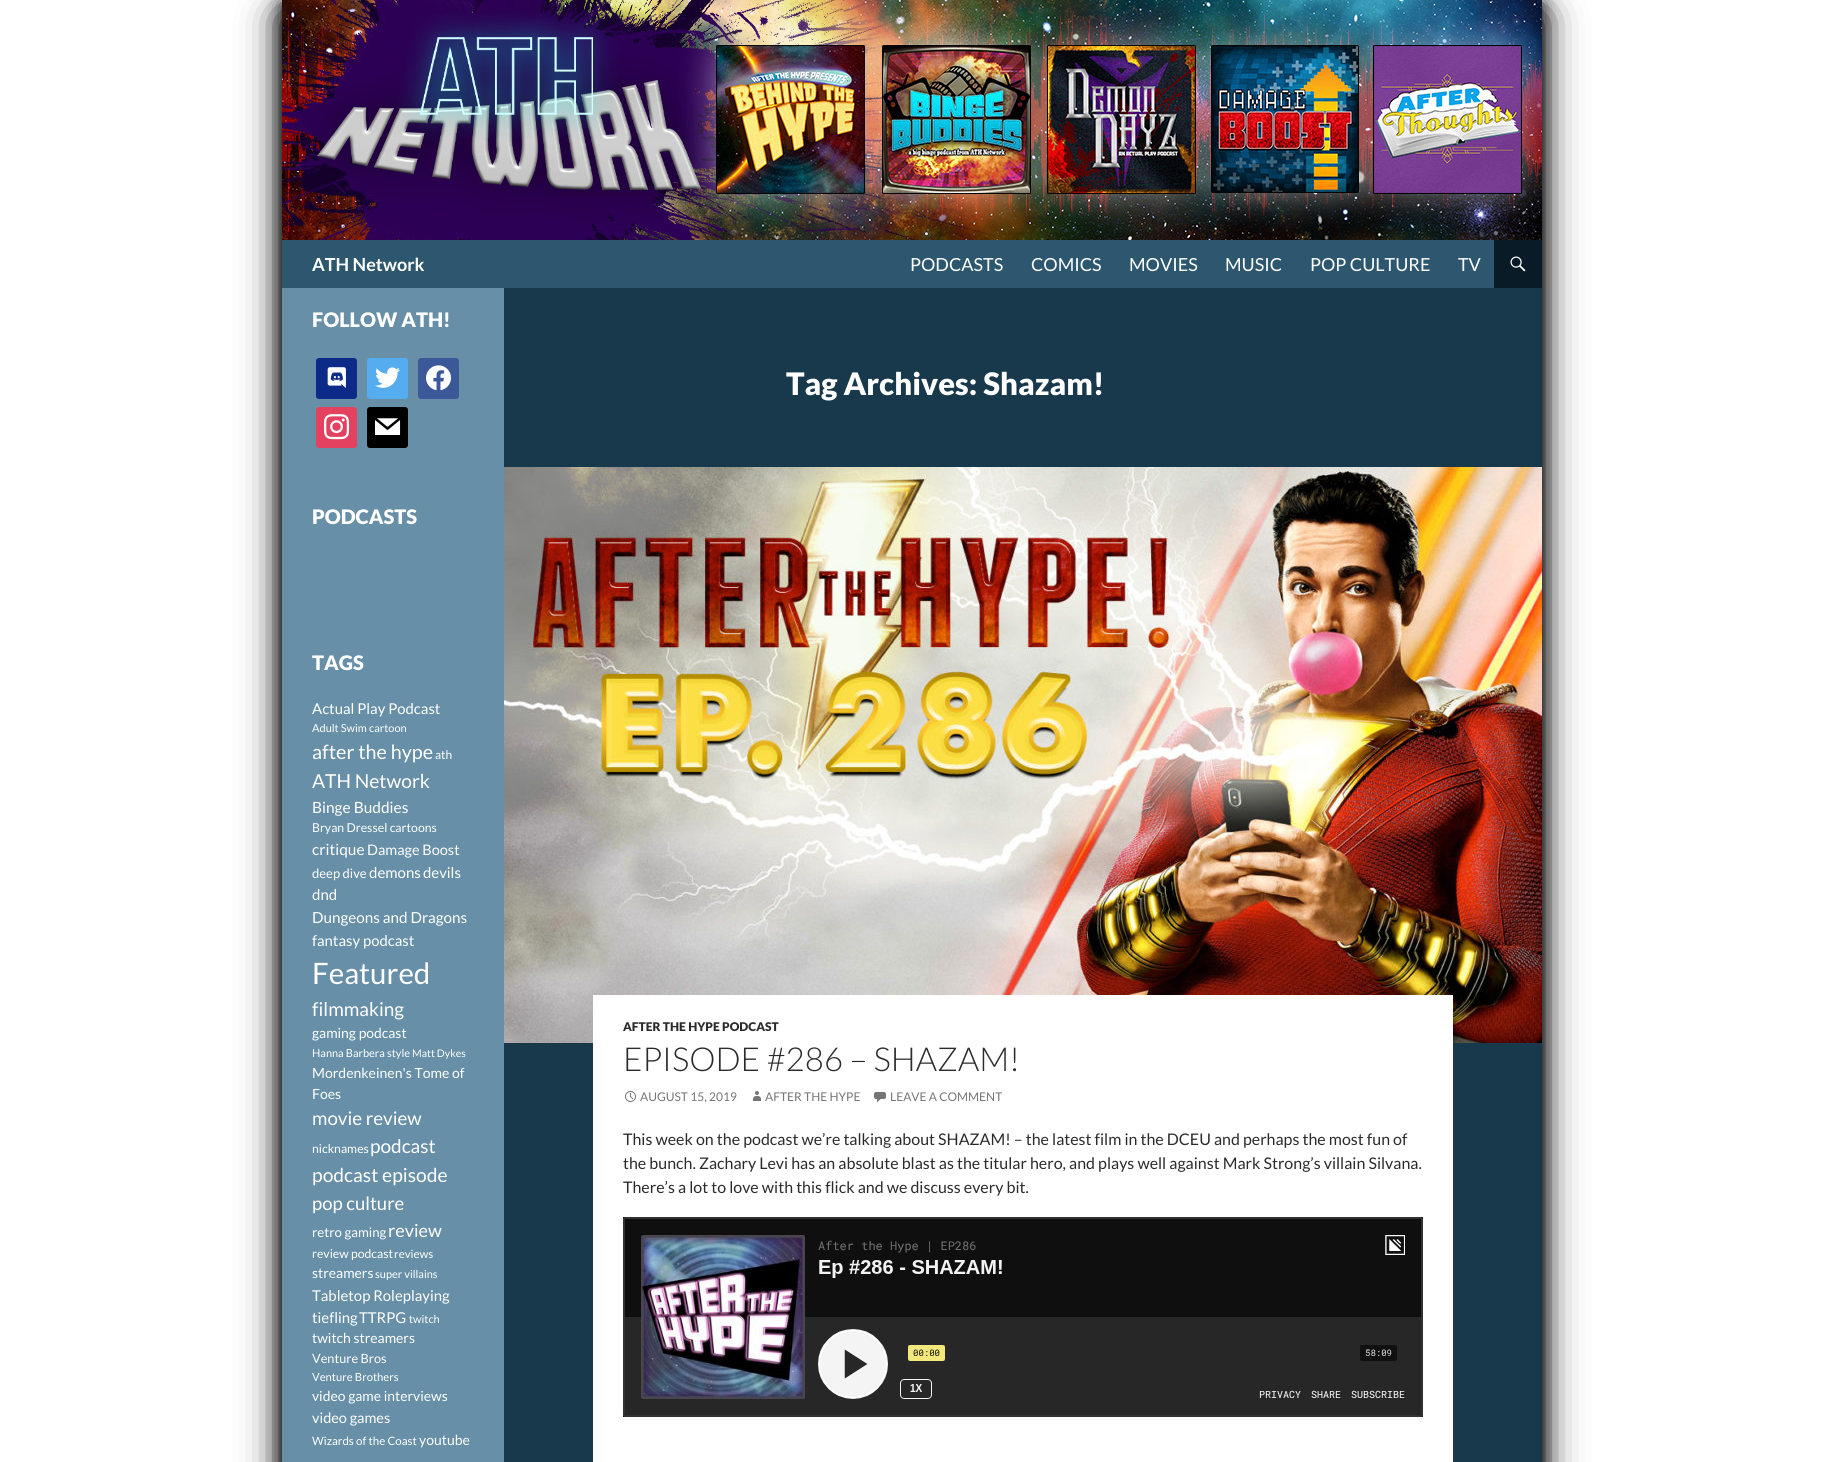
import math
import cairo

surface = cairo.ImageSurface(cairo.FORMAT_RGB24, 1823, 1462)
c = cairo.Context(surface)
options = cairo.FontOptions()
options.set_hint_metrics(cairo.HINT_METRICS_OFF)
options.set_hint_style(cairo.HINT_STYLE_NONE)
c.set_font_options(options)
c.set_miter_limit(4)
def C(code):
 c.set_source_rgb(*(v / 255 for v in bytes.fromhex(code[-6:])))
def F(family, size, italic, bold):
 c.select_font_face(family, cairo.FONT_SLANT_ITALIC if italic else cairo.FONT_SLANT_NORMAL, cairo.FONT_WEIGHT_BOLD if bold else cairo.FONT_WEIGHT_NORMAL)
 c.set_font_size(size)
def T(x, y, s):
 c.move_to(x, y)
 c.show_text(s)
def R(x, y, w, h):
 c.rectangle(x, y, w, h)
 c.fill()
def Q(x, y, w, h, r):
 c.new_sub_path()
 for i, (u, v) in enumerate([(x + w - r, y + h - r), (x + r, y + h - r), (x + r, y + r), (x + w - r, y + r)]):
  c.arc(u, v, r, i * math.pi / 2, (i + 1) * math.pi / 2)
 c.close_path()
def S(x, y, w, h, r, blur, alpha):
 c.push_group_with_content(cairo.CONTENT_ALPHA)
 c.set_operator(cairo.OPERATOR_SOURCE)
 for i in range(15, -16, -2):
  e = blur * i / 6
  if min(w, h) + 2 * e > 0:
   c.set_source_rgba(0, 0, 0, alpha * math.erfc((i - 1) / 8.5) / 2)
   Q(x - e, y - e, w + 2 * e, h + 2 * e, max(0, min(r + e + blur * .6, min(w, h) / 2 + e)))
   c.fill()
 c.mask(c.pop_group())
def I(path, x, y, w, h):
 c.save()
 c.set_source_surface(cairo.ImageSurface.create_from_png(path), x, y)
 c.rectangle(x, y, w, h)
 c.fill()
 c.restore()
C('ffffff')
c.paint()
C('000000')
S(282,16,1260,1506,0,20,1)
S(282,4,1260,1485,0,9,1)
I('1.png',282,0,1260,240)
C('2d576f')
R(282,240,1212,48)
F('Lato',18,0,1)
C('ffffff')
T(312,271,'ATH Network')
F('Lato',18,0,0)
T(910,271,'PODCASTS')
T(1031,271,'COMICS')
T(1129,271,'MOVIES')
T(1225,271,'MUSIC')
T(1310,271,'POP CULTURE')
T(1458,271,'TV')
C('081b26')
R(1494,240,48,48)
I('2.png',1510,256,16,16)
C('6790a8')
R(282,288,222,1174)
C('18394c')
R(504,288,1038,1174)
F('Lato Black',20,0,0)
C('ffffff')
T(312,327,'FOLLOW ATH!')
C('0c2a87')
Q(316,358,41,41,3)
c.fill()
I('3.png',327,367,19,21)
C('55acee')
Q(367,358,41,41,3)
c.fill()
I('4.png',375,367,25,21)
C('3b5998')
Q(418,358,41,41,3)
c.fill()
I('5.png',426,365,25,26)
C('e4405f')
Q(316,407,41,41,3)
c.fill()
I('6.png',324,414,26,26)
C('000000')
Q(367,407,41,41,3)
c.fill()
I('7.png',375,418,26,17)
C('ffffff')
T(312,524,'PODCASTS')
T(312,670,'TAGS')
F('Lato',14.9,0,0)
T(312,714,'Actual Play Podcast')
F('Lato',11,0,0)
T(312,732,'Adult Swim cartoon')
F('Lato',19.75,0,0)
T(312,759,'after the hype')
F('Lato',12,0,0)
T(435,759,'ath')
F('Lato',19.25,0,0)
T(312,788,'ATH Network')
F('Lato',15.5,0,0)
T(312,813,'Binge Buddies')
F('Lato',12.25,0,0)
T(312,832,'Bryan Dressel cartoons')
F('Lato',15.5,0,0)
T(312,855,'critique')
F('Lato',14.5,0,0)
T(367,855,'Damage Boost')
F('Lato',13,0,0)
T(312,878,'deep dive')
F('Lato',15,0,0)
T(369,878,'demons')
F('Lato',14.9,0,0)
T(423,878,'devils')
F('Lato',15,0,0)
T(312,900,'dnd')
F('Lato',15.25,0,0)
T(312,923,'Dungeons and Dragons')
F('Lato',14.9,0,0)
T(312,946,'fantasy podcast')
F('Lato',29.5,0,0)
T(312,984,'Featured')
F('Lato',19,0,0)
T(312,1016,'filmmaking')
F('Lato',13.9,0,0)
T(312,1038,'gaming podcast')
F('Lato',11,0,0)
T(312,1057,'Hanna Barbera style')
F('Lato',10.5,0,0)
T(412,1057,'Matt Dykes')
F('Lato',14,0,0)
T(312,1078,'Mordenkeinen\'s Tome of')
T(312,1099,'Foes')
F('Lato',18.75,0,0)
T(312,1125,'movie review')
F('Lato',12.25,0,0)
T(312,1153,'nicknames')
F('Lato',19,0,0)
T(370,1153,'podcast')
F('Lato',19.25,0,0)
T(312,1182,'podcast episode')
F('Lato',18.5,0,0)
T(312,1210,'pop culture')
F('Lato',13.25,0,0)
T(312,1237,'retro gaming')
F('Lato',18,0,0)
T(388,1237,'review')
F('Lato',12.25,0,0)
T(312,1258,'review podcast')
F('Lato',11.5,0,0)
T(394,1258,'reviews')
F('Lato',13.9,0,0)
T(312,1278,'streamers')
F('Lato',11,0,0)
T(375,1278,'super villains')
F('Lato',14.9,0,0)
T(312,1301,'Tabletop Roleplaying')
T(312,1323,'tiefling')
T(359,1323,'TTRPG')
F('Lato',11,0,0)
T(409,1323,'twitch')
F('Lato',13.9,0,0)
T(312,1343,'twitch streamers')
F('Lato',12.75,0,0)
T(312,1363,'Venture Bros')
F('Lato',11.25,0,0)
T(312,1381,'Venture Brothers')
F('Lato',13.9,0,0)
T(312,1401,'video game interviews')
F('Lato',14.5,0,0)
T(312,1423,'video games')
F('Lato',11.5,0,0)
T(312,1445,'Wizards of the Coast')
F('Lato',14,0,0)
T(419,1445,'youtube')
F('Lato Black',31,0,0)
T(786,395,'Tag Archives: Shazam!')
I('8.png',504,467,1038,576)
R(593,995,860,120)
F('Lato Black',12,0,0)
C('2b2b2b')
T(623,1031,'AFTER THE HYPE PODCAST')
F('Lato Light',33,0,0)
T(623,1071,'EPISODE #286 – SHAZAM!')
I('9.png',625,1091,11,11)
F('Lato',12,0,0)
C('767676')
T(640,1101,'AUGUST 15, 2019')
I('10.png',753,1091,8,10)
T(765,1101,'AFTER THE HYPE')
I('11.png',874,1092,12,11)
T(890,1101,'LEAVE A COMMENT')
C('ffffff')
R(593,1115,860,347)
F('Lato',16,0,0)
C('2b2b2b')
T(623,1145,'This week on the podcast we’re talking about SHAZAM! – the latest film in the DCEU and perhaps the most fun of')
T(623,1169,'the bunch. Zachary Levi has an absolute blast as the titular hero, and plays well against Mark Strong’s villain Silvana.')
T(623,1193,'There’s a lot to love with this flick and we discuss every bit.')
I('12.png',623,1217,800,200)
surface.write_to_png('o.png')
